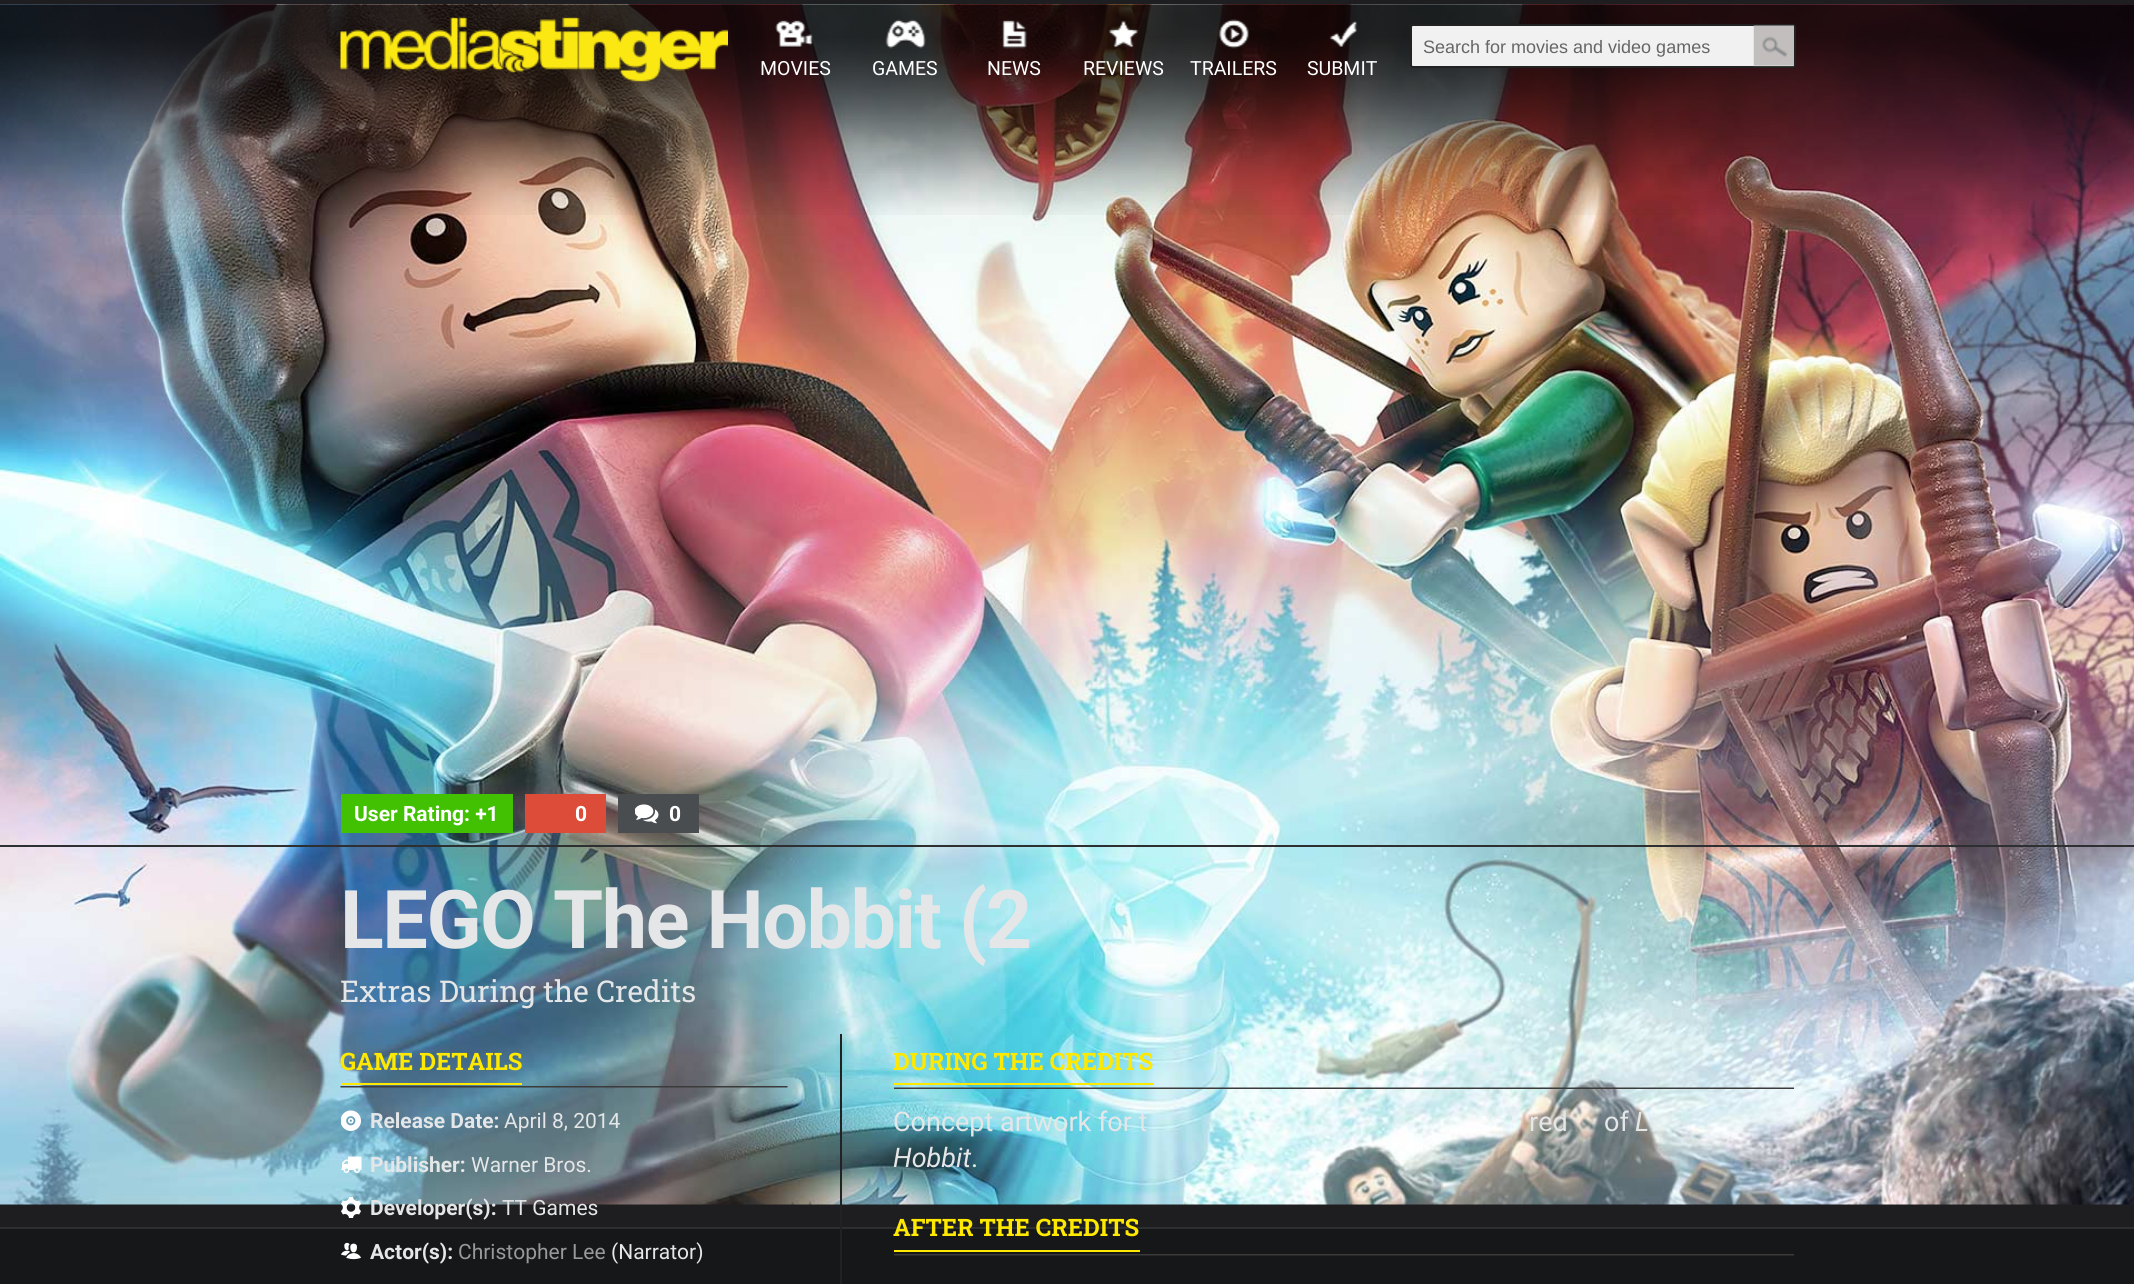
import math
import cairo

surface = cairo.ImageSurface(cairo.FORMAT_RGB24, 2134, 1284)
c = cairo.Context(surface)
options = cairo.FontOptions()
options.set_hint_metrics(cairo.HINT_METRICS_OFF)
options.set_hint_style(cairo.HINT_STYLE_NONE)
c.set_font_options(options)
c.set_miter_limit(4)
def C(code):
 c.set_source_rgb(*(v / 255 for v in bytes.fromhex(code[-6:])))
def F(family, size, italic, bold):
 c.select_font_face(family, cairo.FONT_SLANT_ITALIC if italic else cairo.FONT_SLANT_NORMAL, cairo.FONT_WEIGHT_BOLD if bold else cairo.FONT_WEIGHT_NORMAL)
 c.set_font_size(size)
def T(x, y, s):
 c.move_to(x, y)
 c.show_text(s)
def L(x, y, s, letter, word):
 c.move_to(x, y)
 for ch in s:
  c.show_text(ch)
  c.rel_move_to(letter + word * (ch == ' '), 0)
def R(x, y, w, h):
 c.rectangle(x, y, w, h)
 c.fill()
def Q(x, y, w, h, r):
 c.new_sub_path()
 for i, (u, v) in enumerate([(x + w - r, y + h - r), (x + r, y + h - r), (x + r, y + r), (x + w - r, y + r)]):
  c.arc(u, v, r, i * math.pi / 2, (i + 1) * math.pi / 2)
 c.close_path()
def I(path, x, y, w, h):
 c.save()
 c.set_source_surface(cairo.ImageSurface.create_from_png(path), x, y)
 c.rectangle(x, y, w, h)
 c.fill()
 c.restore()
C('1e1e20')
c.paint()
I('1.png',0,4,2134,1201)
I('2.png',0,4,2134,211)
I('3.png',340,17,388,65)
C('f1f1f1')
Q(1411,25,384,42,2)
c.fill_preserve()
C('222222')
c.stroke()
F('Liberation Sans',18,0,0)
C('666666')
T(1423,53,'Search for movies and video games')
I('4.png',1753,25,41,42)
I('5.png',775,20,38,28)
F('Roboto',19.5,0,0)
C('ffffff')
T(760,75,'MOVIES')
I('6.png',885,19,41,30)
T(872,75,'GAMES')
I('7.png',1002,20,25,29)
T(987,75,'NEWS')
I('8.png',1108,20,31,28)
T(1083,75,'REVIEWS')
I('9.png',1218,19,31,30)
T(1190,75,'TRAILERS')
I('10.png',1329,21,28,26)
T(1307,75,'SUBMIT')
C('161718')
R(0,1229,2134,55)
C('2e2f31')
R(0,1227,2134,2)
C('41c102')
R(341,794,172,39)
F('Roboto',21,0,1)
C('ffffff')
T(354,821,'User Rating: +1')
C('dd4b39')
R(525,794,81,39)
C('ffffff')
T(575,821,'0')
C('494d50')
R(618,794,81,39)
I('11.png',635,804,24,20)
C('ffffff')
T(669,821,'0')
F('Roboto',81,0,1)
C('e4e6e7')
L(340,948,'LEGO The Hobbit (2',-1.5,0)
F('Roboto Slab',30,0,0)
T(340,1002,'Extras During the Credits')
C('2e2f31')
R(0,845,2134,2)
I('12.png',340,1086,448,2)
F('Roboto Slab',24,0,1)
C('ffe900')
T(340,1070,'GAME DETAILS')
R(341,1083,181,2)
I('13.png',341,1110,21,21)
F('Roboto',21,0,1)
C('e4e6e7')
T(370,1128,'Release Date:')
F('Roboto',21,0,0)
T(504,1128,'April 8, 2014')
I('14.png',341,1156,21,17)
F('Roboto',21,0,1)
T(370,1172,'Publisher:')
F('Roboto',21,0,0)
T(471,1172,'Warner Bros.')
I('15.png',341,1197,20,21)
F('Roboto',21,0,1)
T(370,1215,'Developer(s):')
F('Roboto',21,0,0)
T(502,1215,'TT Games')
I('16.png',341,1242,20,18)
F('Roboto',21,0,1)
T(370,1259,'Actor(s):')
F('Roboto',21,0,0)
C('999999')
T(458,1259,'Christopher Lee')
C('e4e6e7')
T(611,1259,'(Narrator)')
C('222222')
R(840,1034,2,250)
I('17.png',894,1087,900,2)
F('Roboto Slab',24,0,1)
C('ffe900')
T(893,1070,'DURING THE CREDITS')
R(894,1083,260,2)
F('Roboto',27,0,0)
C('e4e6e7')
T(893,1131,'Concept artwork for t')
T(1529,1131,'red')
T(1604,1131,'of')
F('Roboto',27,1,0)
T(1635,1131,'L')
T(893,1167,'Hobbit')
F('Roboto',27,0,0)
T(971,1167,'.')
I('18.png',894,1254,900,2)
F('Roboto Slab',24,0,1)
C('ffe900')
T(893,1236,'AFTER THE CREDITS')
R(894,1250,246,2)
surface.write_to_png('o.png')
